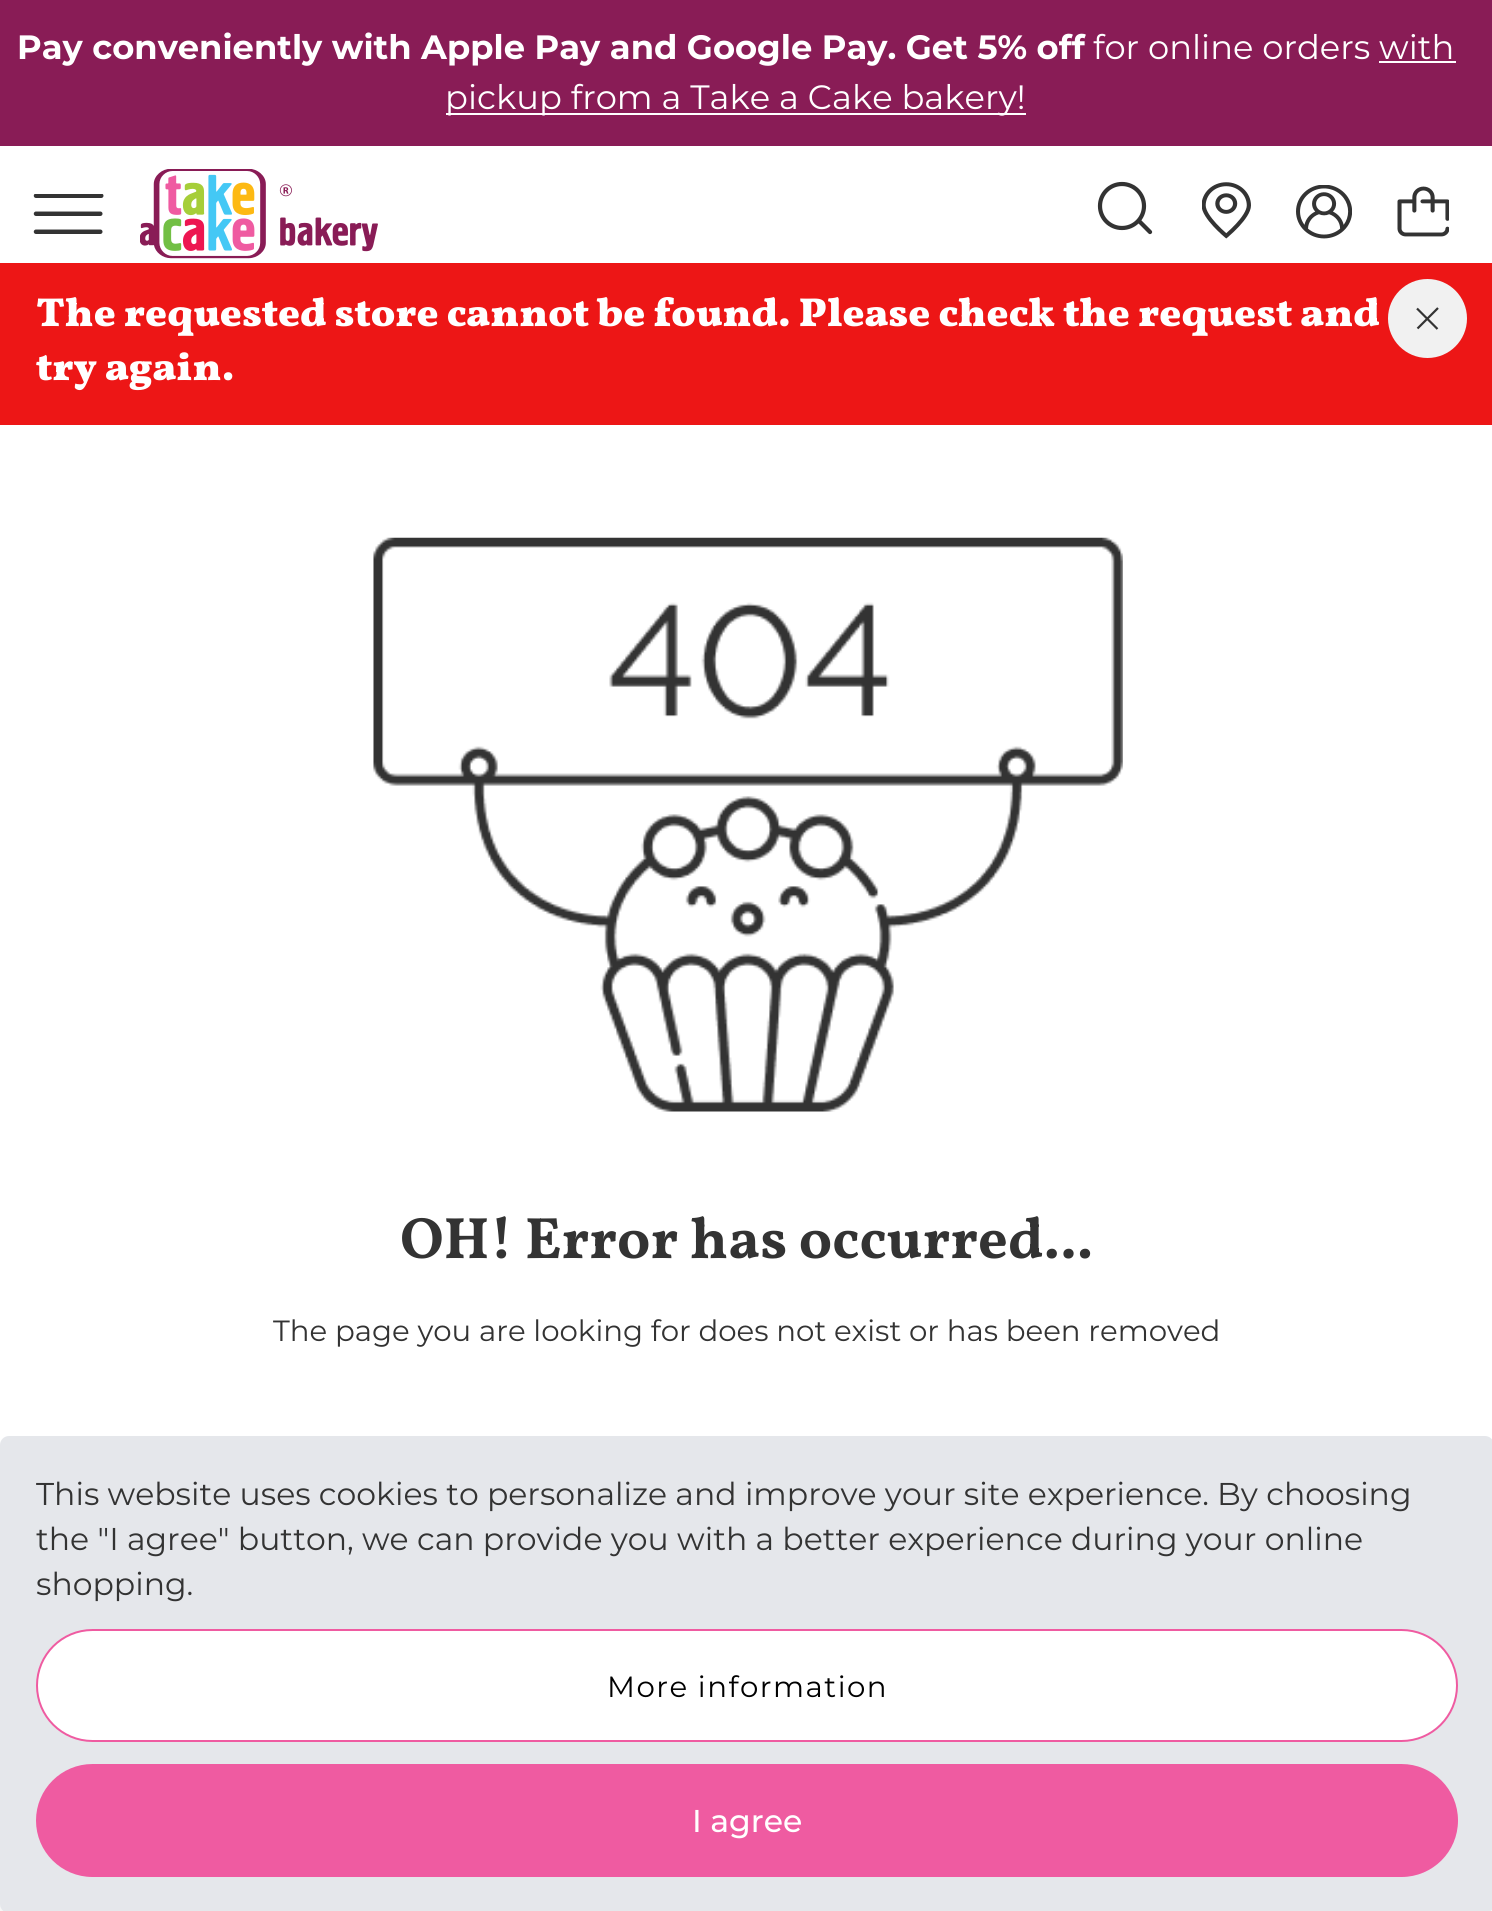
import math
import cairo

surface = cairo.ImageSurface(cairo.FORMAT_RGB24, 1492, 1911)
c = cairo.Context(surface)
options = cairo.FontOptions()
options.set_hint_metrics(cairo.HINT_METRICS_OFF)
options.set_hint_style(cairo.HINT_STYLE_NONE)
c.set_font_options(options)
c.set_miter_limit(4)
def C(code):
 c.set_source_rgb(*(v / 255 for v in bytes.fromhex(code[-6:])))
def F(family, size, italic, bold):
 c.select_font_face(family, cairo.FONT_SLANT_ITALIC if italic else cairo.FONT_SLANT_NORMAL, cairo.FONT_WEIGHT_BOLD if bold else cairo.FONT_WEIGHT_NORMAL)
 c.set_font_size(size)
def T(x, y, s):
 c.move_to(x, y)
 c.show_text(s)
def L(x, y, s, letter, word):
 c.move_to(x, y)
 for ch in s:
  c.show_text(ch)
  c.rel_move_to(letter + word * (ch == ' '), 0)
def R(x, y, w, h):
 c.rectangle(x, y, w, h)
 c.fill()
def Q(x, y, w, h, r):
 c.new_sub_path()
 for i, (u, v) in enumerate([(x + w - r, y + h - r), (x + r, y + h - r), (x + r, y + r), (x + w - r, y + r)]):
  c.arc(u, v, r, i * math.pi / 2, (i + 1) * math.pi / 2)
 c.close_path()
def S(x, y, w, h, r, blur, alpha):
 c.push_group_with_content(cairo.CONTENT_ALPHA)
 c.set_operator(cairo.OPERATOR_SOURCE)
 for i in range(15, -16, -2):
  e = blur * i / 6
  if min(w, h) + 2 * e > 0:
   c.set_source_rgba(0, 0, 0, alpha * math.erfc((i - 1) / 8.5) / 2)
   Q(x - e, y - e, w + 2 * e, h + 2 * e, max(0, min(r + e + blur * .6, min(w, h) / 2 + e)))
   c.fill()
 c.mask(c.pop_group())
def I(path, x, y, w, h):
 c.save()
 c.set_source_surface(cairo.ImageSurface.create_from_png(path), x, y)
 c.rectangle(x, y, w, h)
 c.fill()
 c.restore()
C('ffffff')
c.paint()
C('891c56')
R(0,0,1492,146)
F('Montserrat',33.75,0,1)
C('ffffff')
T(17,59,'Pay conveniently with Apple Pay and Google Pay. Get 5% off')
F('Montserrat',33.75,0,0)
T(1093,59,'for online orders with')
R(1379,61,77,2)
R(446,113,580,2)
T(445,109,'pickup from a Take a Cake bakery!')
I('1.png',33,194,71,40)
I('2.png',140,169,238,90)
c.arc(1122,206,22,0,2 * math.pi)
C('333333')
c.set_line_width(4.2)
c.stroke()
c.new_path()
c.move_to(1148.5,233.5)
c.curve_to(1150.5,235.5,1153.5,232.5,1151.5,230.5)
c.close_path()
c.move_to(1138,223)
c.line_to(1148.5,233.5)
c.line_to(1151.5,230.5)
c.line_to(1141,220)
c.close_path()
c.fill()
I('3.png',1202,182,49,57)
I('4.png',1296,185,56,54)
I('5.png',1397,186,52,51)
C('ed1616')
R(0,263,1492,162)
F('Vollkorn Black',40.5,0,0)
C('ffffff')
T(36,326,'The requested store cannot be found. Please check the request and')
T(36,380,'try again.')
C('f1f1f1')
c.new_path()
c.arc(1427.5,318.5,39.5,0,2 * math.pi)
c.fill()
c.new_path()
c.move_to(1437.5,329)
c.line_to(1417,308.5)
c.move_to(1438,308)
c.line_to(1417.5,328.5)
C('333333')
c.set_line_width(2.2)
c.stroke()
I('6.png',373,537,750,575)
F('Vollkorn',58.5,0,1)
T(400,1258,'OH! Error has occurred...')
F('Montserrat',29.25,0,0)
T(273,1341,'The page you are looking for does not exist or has been removed')
C('000000')
S(11,1492,1472,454,0,28,.1)
C('e5e7eb')
Q(0,1436,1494,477,9)
c.fill()
F('Montserrat',31.5,0,0)
C('333333')
T(36,1505,'This website uses cookies to personalize and improve your site experience. By choosing')
T(36,1550,'the "I agree" button, we can provide you with a better experience during your online')
T(36,1595,'shopping.')
C('ffffff')
Q(37,1630,1420,111,55.5)
c.fill_preserve()
C('ef5ba1')
c.set_line_width(2)
c.stroke()
F('Montserrat',29.25,0,0)
C('000000')
L(607,1697,'More information',1.5,0)
C('ef5ba1')
Q(36,1764,1422,113,56.5)
c.fill()
F('Montserrat Medium',31.5,0,0)
C('ffffff')
T(692,1832,'I agree')
surface.write_to_png('o.png')
